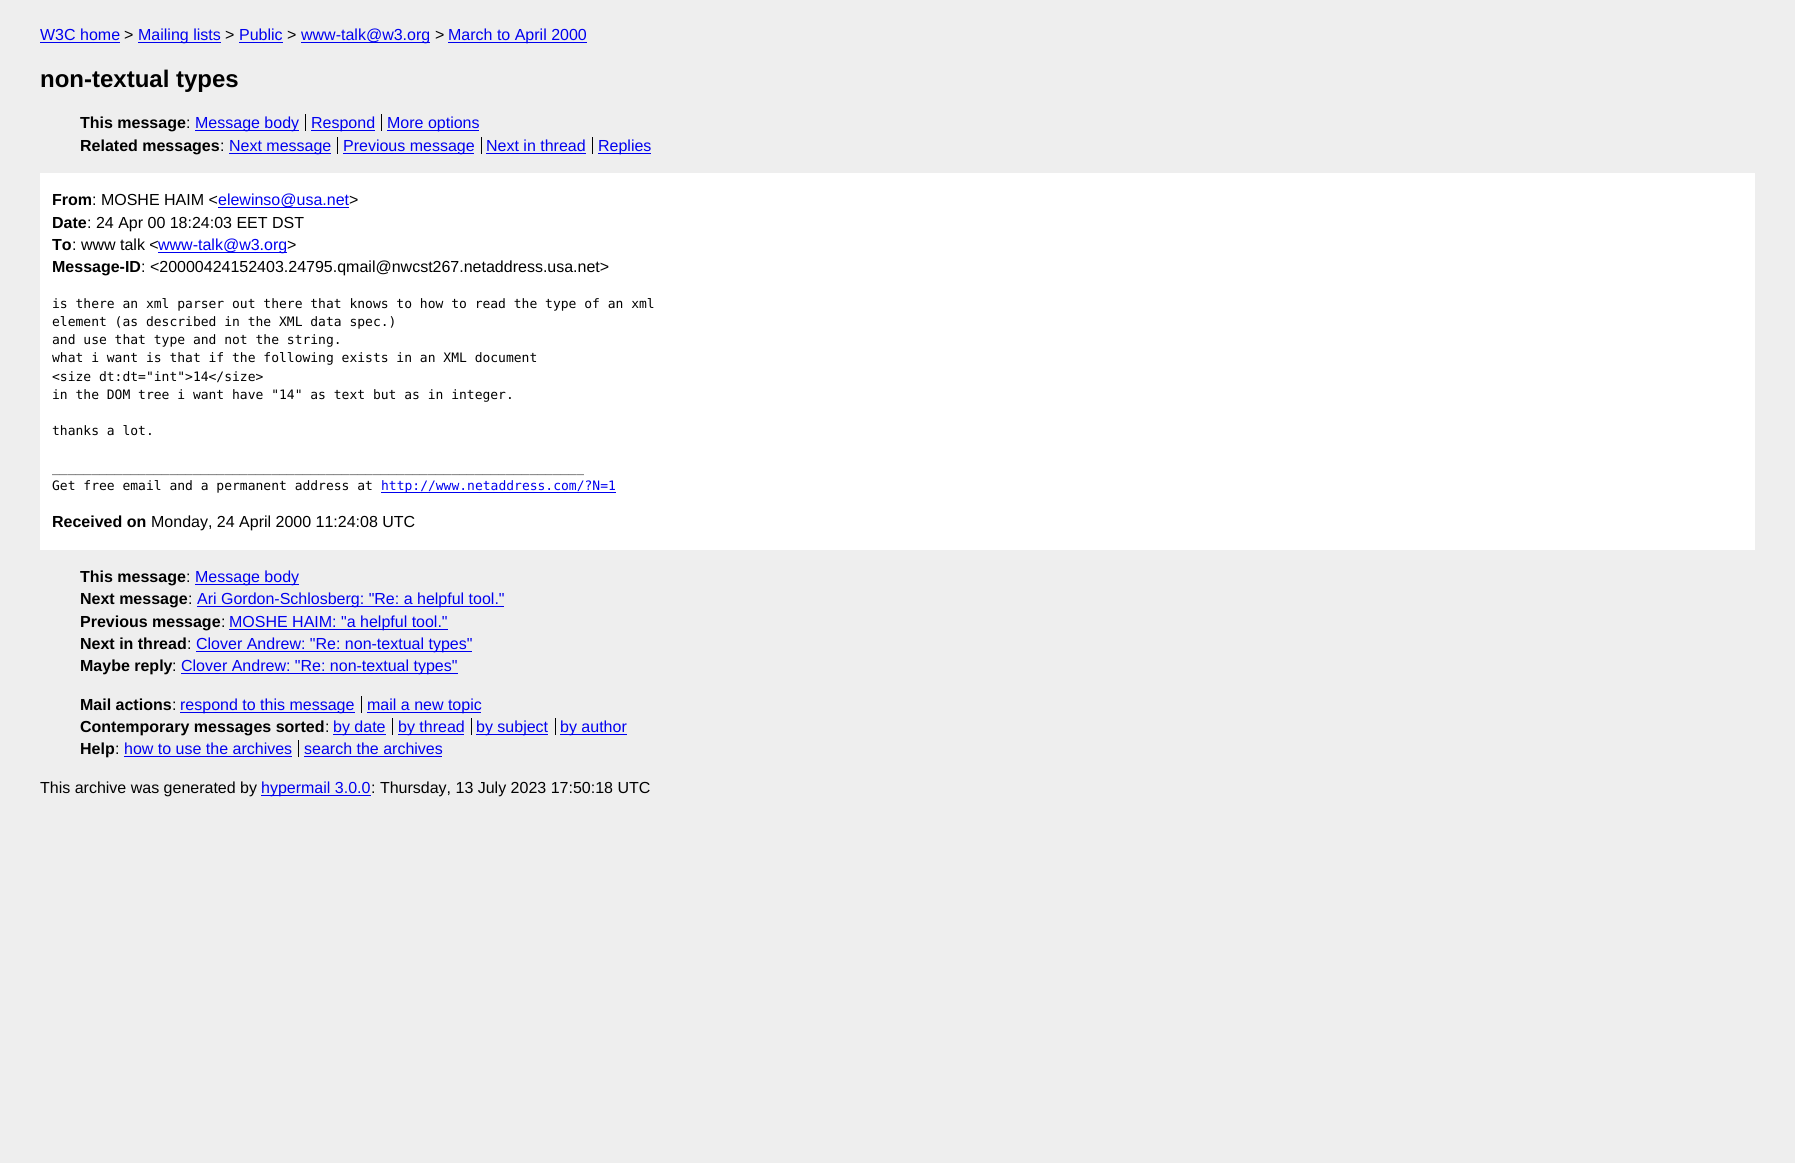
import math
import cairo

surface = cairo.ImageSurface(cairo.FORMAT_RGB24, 1795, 1163)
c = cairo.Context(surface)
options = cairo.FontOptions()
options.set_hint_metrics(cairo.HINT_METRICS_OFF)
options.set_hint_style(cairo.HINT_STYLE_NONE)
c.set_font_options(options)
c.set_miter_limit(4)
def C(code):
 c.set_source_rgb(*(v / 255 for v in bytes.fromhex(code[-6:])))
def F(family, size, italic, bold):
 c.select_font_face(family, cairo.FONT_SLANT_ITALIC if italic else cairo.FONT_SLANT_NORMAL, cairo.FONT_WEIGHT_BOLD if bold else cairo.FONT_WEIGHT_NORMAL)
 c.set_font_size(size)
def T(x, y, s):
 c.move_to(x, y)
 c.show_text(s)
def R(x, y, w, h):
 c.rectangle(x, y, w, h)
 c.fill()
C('eeeeee')
c.paint()
F('Liberation Sans',16,0,0)
C('0000ee')
T(40,40,'W3C home')
R(40,42,80,1)
C('000000')
T(124,40,'>')
C('0000ee')
R(138,42,83,1)
T(138,40,'Mailing lists')
C('000000')
T(225,40,'>')
C('0000ee')
T(239,40,'Public')
R(239,42,44,1)
C('000000')
T(287,40,'>')
C('0000ee')
R(301,42,129,1)
T(301,40,'www-talk@w3.org')
C('000000')
T(435,40,'>')
C('0000ee')
R(448,42,139,1)
T(448,40,'March to April 2000')
F('Liberation Sans',24,0,1)
C('000000')
T(40,87,'non-textual types')
F('Liberation Sans',16,0,1)
T(80,128,'This message')
F('Liberation Sans',16,0,0)
T(186,128,':')
C('0000ee')
R(195,130,104,1)
T(195,128,'Message body')
R(311,130,64,1)
T(311,128,'Respond')
C('000000')
R(305,114,1,17)
C('0000ee')
R(387,130,92,1)
T(387,128,'More options')
C('000000')
R(381,114,1,17)
F('Liberation Sans',16,0,1)
T(80,151,'Related messages')
F('Liberation Sans',16,0,0)
T(220,151,':')
C('0000ee')
R(229,153,102,1)
T(229,151,'Next message')
R(343,153,131,1)
T(343,151,'Previous message')
C('000000')
R(337,137,1,17)
C('0000ee')
T(486,151,'Next in thread')
C('000000')
R(481,137,1,17)
R(592,137,1,17)
C('0000ee')
R(486,153,100,1)
R(598,153,53,1)
T(598,151,'Replies')
C('ffffff')
R(40,173,1715,377)
F('Liberation Sans',16,0,1)
C('000000')
T(52,205,'From')
F('Liberation Sans',16,0,0)
T(92,205,': MOSHE HAIM <')
C('0000ee')
R(218,207,131,1)
T(218,205,'elewinso@usa.net')
C('000000')
T(349,205,'>')
F('Liberation Sans',16,0,1)
T(52,228,'Date')
F('Liberation Sans',16,0,0)
T(87,228,': 24 Apr 00 18:24:03 EET DST')
F('Liberation Sans',16,0,1)
T(52,250,'To')
F('Liberation Sans',16,0,0)
T(72,250,': www talk <')
C('0000ee')
R(158,252,129,1)
T(158,250,'www-talk@w3.org')
C('000000')
T(287,250,'>')
F('Liberation Sans',16,0,1)
T(52,272,'Message-ID')
F('Liberation Sans',16,0,0)
T(141,272,': <20000424152403.24795.qmail@nwcst267.netaddress.usa.net>')
F('DejaVu Sans Mono',13,0,0)
T(52,308,'is there an xml parser out there that knows to how to read the type of an xml')
T(52,326,'element (as described in the XML data spec.)')
T(52,344,'and use that type and not the string.')
T(52,362,'what i want is that if the following exists in an XML document')
T(52,381,'<size dt:dt="int">14</size>')
T(52,399,'in the DOM tree i want have "14" as text but as in integer.')
T(52,435,'thanks a lot.')
T(52,472,'____________________________________________________________________')
T(52,490,'Get free email and a permanent address at')
C('0000ee')
R(381,492,235,1)
T(381,490,'http://www.netaddress.com/?N=1')
F('Liberation Sans',16,0,1)
C('000000')
T(52,527,'Received on')
F('Liberation Sans',16,0,0)
T(151,527,'Monday, 24 April 2000 11:24:08 UTC')
F('Liberation Sans',16,0,1)
T(80,582,'This message')
F('Liberation Sans',16,0,0)
T(186,582,':')
C('0000ee')
R(195,584,104,1)
T(195,582,'Message body')
F('Liberation Sans',16,0,1)
C('000000')
T(80,604,'Next message')
F('Liberation Sans',16,0,0)
T(188,604,':')
C('0000ee')
R(197,606,307,1)
T(197,604,'Ari Gordon-Schlosberg: "Re: a helpful tool."')
F('Liberation Sans',16,0,1)
C('000000')
T(80,627,'Previous message')
F('Liberation Sans',16,0,0)
T(221,627,':')
C('0000ee')
R(229,629,219,1)
T(229,627,'MOSHE HAIM: "a helpful tool."')
F('Liberation Sans',16,0,1)
C('000000')
T(80,649,'Next in thread')
F('Liberation Sans',16,0,0)
T(187,649,':')
C('0000ee')
R(196,651,276,1)
T(196,649,'Clover Andrew: "Re: non-textual types"')
F('Liberation Sans',16,0,1)
C('000000')
T(80,671,'Maybe reply')
F('Liberation Sans',16,0,0)
T(172,671,':')
C('0000ee')
R(181,673,277,1)
T(181,671,'Clover Andrew: "Re: non-textual types"')
F('Liberation Sans',16,0,1)
C('000000')
T(80,710,'Mail actions')
F('Liberation Sans',16,0,0)
T(172,710,':')
C('0000ee')
R(180,712,175,1)
T(180,710,'respond to this message')
R(367,712,114,1)
T(367,710,'mail a new topic')
C('000000')
R(361,696,1,17)
F('Liberation Sans',16,0,1)
T(80,732,'Contemporary messages sorted')
F('Liberation Sans',16,0,0)
T(325,732,':')
C('0000ee')
R(333,734,53,1)
T(333,732,'by date')
R(398,734,66,1)
T(398,732,'by thread')
C('000000')
R(392,718,1,17)
C('0000ee')
R(476,734,72,1)
T(476,732,'by subject')
C('000000')
R(471,718,1,17)
C('0000ee')
R(560,734,67,1)
T(560,732,'by author')
C('000000')
R(555,718,1,17)
F('Liberation Sans',16,0,1)
T(80,754,'Help')
F('Liberation Sans',16,0,0)
T(115,754,':')
C('0000ee')
T(124,754,'how to use the archives')
R(124,756,168,1)
T(304,754,'search the archives')
C('000000')
R(298,740,1,17)
C('0000ee')
R(304,756,138,1)
C('000000')
T(40,793,'This archive was generated by')
C('0000ee')
R(261,795,110,1)
T(261,793,'hypermail 3.0.0')
C('000000')
T(371,793,': Thursday, 13 July 2023 17:50:18 UTC')
surface.write_to_png('o.png')
